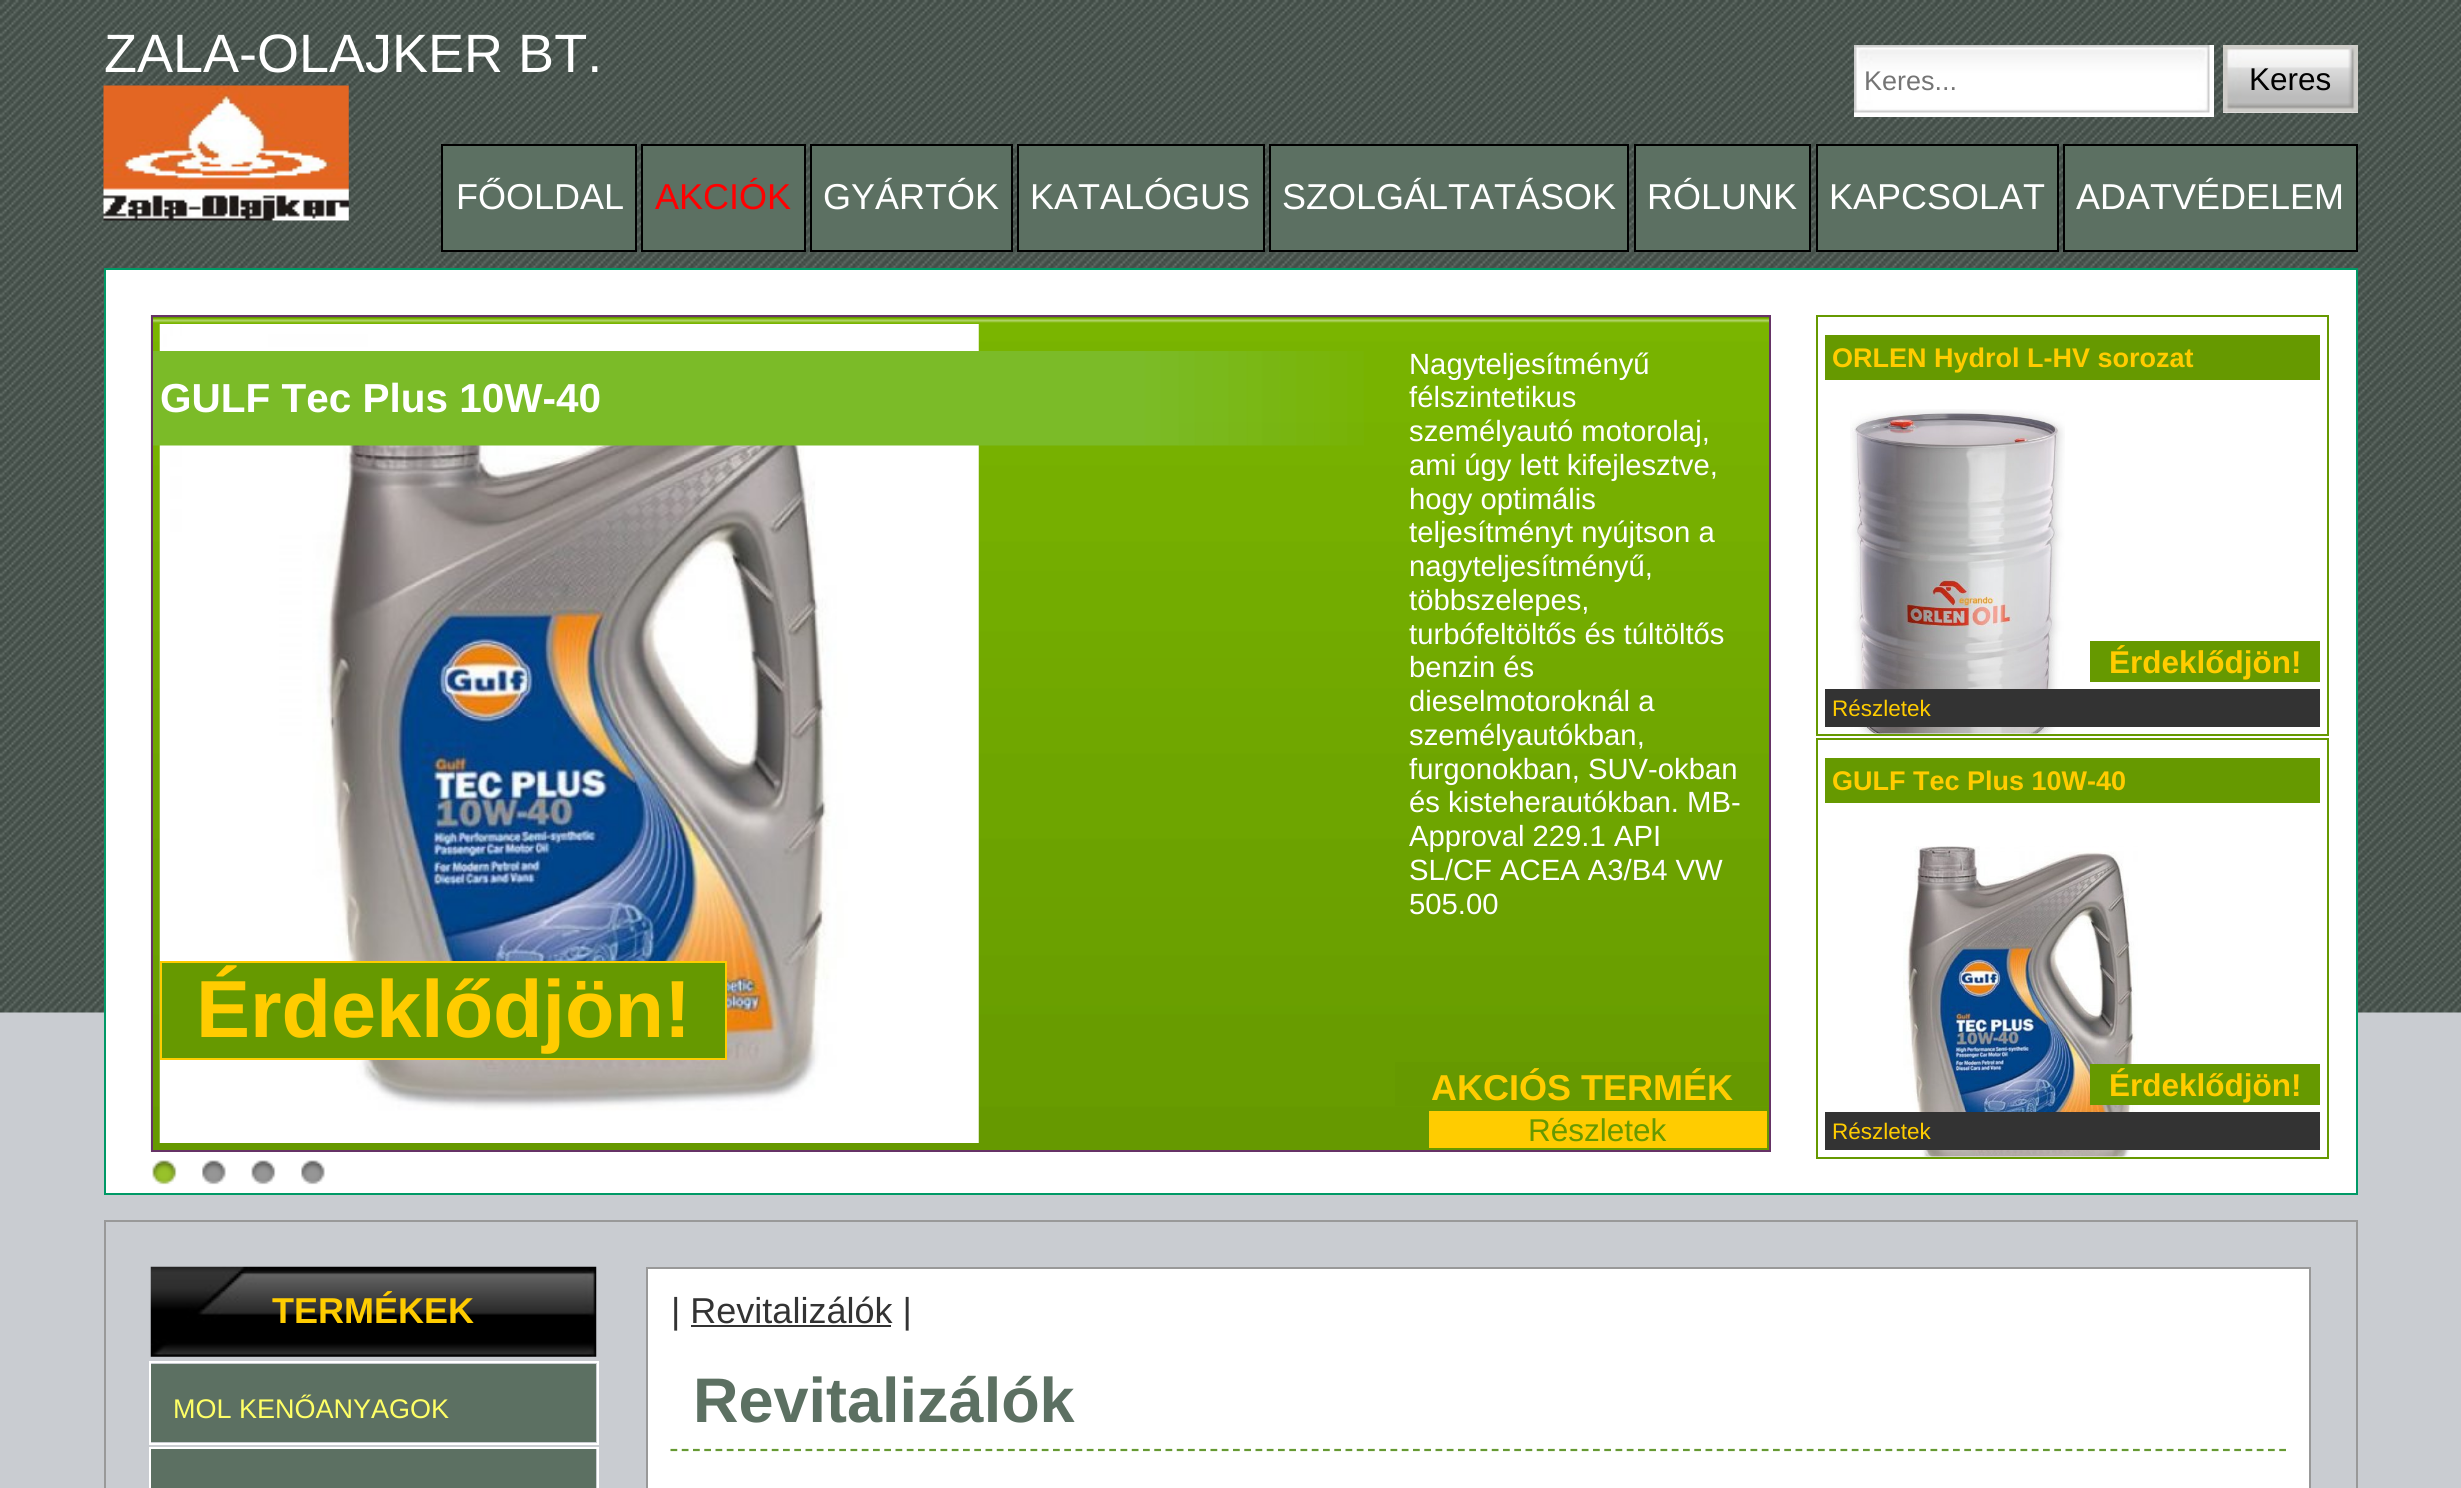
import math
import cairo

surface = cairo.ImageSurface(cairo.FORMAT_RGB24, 2461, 1488)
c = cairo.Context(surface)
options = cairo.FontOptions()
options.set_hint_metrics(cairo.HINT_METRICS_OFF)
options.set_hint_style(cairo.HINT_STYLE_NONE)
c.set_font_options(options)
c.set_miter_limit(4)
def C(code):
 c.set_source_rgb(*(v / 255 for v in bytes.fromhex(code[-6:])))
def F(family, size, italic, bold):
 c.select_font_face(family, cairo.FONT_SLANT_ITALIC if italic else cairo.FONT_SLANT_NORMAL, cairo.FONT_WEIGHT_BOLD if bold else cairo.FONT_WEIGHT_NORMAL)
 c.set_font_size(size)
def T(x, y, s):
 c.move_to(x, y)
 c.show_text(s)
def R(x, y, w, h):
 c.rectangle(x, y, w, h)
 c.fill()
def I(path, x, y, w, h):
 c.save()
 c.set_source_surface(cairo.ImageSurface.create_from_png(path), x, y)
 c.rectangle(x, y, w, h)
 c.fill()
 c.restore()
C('c9ccd1')
c.paint()
I('1.png',0,0,2461,1013)
F('Liberation Sans',54,0,0)
C('ffffff')
T(104,72,'ZALA-OLAJKER BT.')
I('2.png',103,85,246,136)
R(1854,45,360,72)
I('3.png',1854,45,356,68)
F('Liberation Sans',27,0,0)
C('757575')
T(1864,90,'Keres...')
C('efefef')
R(2223,112,135,1)
I('4.png',2223,45,135,68)
F('Liberation Sans',31.5,0,0)
C('000000')
T(2249,90,'Keres')
C('5c7062')
c.rectangle(442,145,194,106)
c.fill_preserve()
C('000000')
c.stroke()
F('Liberation Sans',36,0,0)
C('ffffff')
T(456,209,'FŐOLDAL')
C('5c7062')
c.rectangle(642,145,163,106)
c.fill_preserve()
C('000000')
c.stroke()
C('ff0000')
T(655,209,'AKCIÓK')
C('5c7062')
c.rectangle(811,145,201,106)
c.fill_preserve()
C('000000')
c.stroke()
C('ffffff')
T(823,209,'GYÁRTÓK')
C('5c7062')
c.rectangle(1018,145,246,106)
c.fill_preserve()
C('000000')
c.stroke()
C('ffffff')
T(1030,209,'KATALÓGUS')
C('5c7062')
c.rectangle(1270,145,358,106)
c.fill_preserve()
C('000000')
c.stroke()
C('ffffff')
T(1282,209,'SZOLGÁLTATÁSOK')
C('5c7062')
c.rectangle(1635,145,175,106)
c.fill_preserve()
C('000000')
c.stroke()
C('ffffff')
T(1647,209,'RÓLUNK')
C('5c7062')
c.rectangle(1817,145,241,106)
c.fill_preserve()
C('000000')
c.stroke()
C('ffffff')
T(1829,209,'KAPCSOLAT')
C('5c7062')
c.rectangle(2064,145,293,106)
c.fill_preserve()
C('000000')
c.stroke()
C('ffffff')
T(2076,209,'ADATVÉDELEM')
c.rectangle(105,1221,2252,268)
C('999999')
c.stroke()
C('ffffff')
c.rectangle(647,1268,1663,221)
c.fill_preserve()
C('999999')
c.stroke()
C('ffffff')
c.rectangle(105,269,2252,925)
c.fill_preserve()
C('009966')
c.stroke()
I('5.png',150,315,1619,837)
c.rectangle(152,316,1618,835)
C('663366')
c.stroke()
I('6.png',159,324,820,819)
F('Liberation Sans',29.25,0,0)
C('ffffff')
T(1409,374,'Nagyteljesítményű')
T(1409,407,'félszintetikus')
T(1409,441,'személyautó motorolaj,')
T(1409,475,'ami úgy lett kifejlesztve,')
T(1409,509,'hogy optimális')
T(1409,542,'teljesítményt nyújtson a')
T(1409,576,'nagyteljesítményű,')
T(1409,610,'többszelepes,')
T(1409,644,'turbófeltöltős és túltöltős')
T(1409,677,'benzin és')
T(1409,711,'dieselmotoroknál a')
T(1409,745,'személyautókban,')
T(1409,779,'furgonokban, SUV-okban')
T(1409,812,'és kisteherautókban. MB-')
T(1409,846,'Approval 229.1 API')
T(1409,880,'SL/CF ACEA A3/B4 VW')
T(1409,914,'505.00')
I('7.png',153,351,1211,95)
F('Liberation Sans',40.5,0,1)
T(160,412,'GULF Tec Plus 10W-40')
C('669900')
c.rectangle(161,962,565,97)
c.fill_preserve()
C('ffcc00')
c.stroke()
F('Liberation Sans',81,0,1)
T(196,1037,'Érdeklődjön!')
C('669900')
R(1395,1062,374,44)
F('Liberation Sans',36,0,1)
C('ffcc00')
T(1431,1100,'AKCIÓS TERMÉK')
R(1429,1111,338,37)
F('Liberation Sans',31.5,0,0)
C('669900')
T(1528,1141,'Részletek')
c.rectangle(1817,316,511,419)
c.stroke()
R(1825,335,495,45)
F('Liberation Sans',27,0,1)
C('ffcc00')
T(1832,367,'ORLEN Hydrol L-HV sorozat')
I('8.png',1850,409,215,325)
C('669900')
R(2090,641,230,41)
F('Liberation Sans',31.5,0,1)
C('ffcc00')
T(2109,673,'Érdeklődjön!')
C('333333')
R(1825,689,495,38)
F('Liberation Sans',22.5,0,0)
C('ffcc00')
T(1832,716,'Részletek')
c.rectangle(1817,739,511,419)
C('669900')
c.stroke()
R(1825,758,495,45)
F('Liberation Sans',27,0,1)
C('ffcc00')
T(1832,790,'GULF Tec Plus 10W-40')
I('9.png',1903,846,235,311)
C('669900')
R(2090,1064,230,41)
F('Liberation Sans',31.5,0,1)
C('ffcc00')
T(2109,1096,'Érdeklődjön!')
C('333333')
R(1825,1112,495,38)
F('Liberation Sans',22.5,0,0)
C('ffcc00')
T(1832,1139,'Részletek')
I('10.png',152,1160,25,25)
I('11.png',202,1160,24,25)
I('12.png',251,1160,25,25)
I('13.png',301,1160,24,25)
F('Liberation Sans',36,0,0)
C('333333')
T(671,1323,'| Revitalizálók |')
R(691,1325,200,2)
c.new_path()
c.move_to(670.5,1450)
c.line_to(2286,1450)
C('669933')
c.set_line_width(2.2)
c.set_dash([6.75,4.5])
c.stroke()
F('Liberation Sans',63,0,1)
C('5c7062')
T(693,1422,'Revitalizálók')
I('14.png',150,1266,447,91)
F('Liberation Sans',36,0,1)
C('ffcc00')
T(272,1323,'TERMÉKEK')
C('5c7062')
R(151,1364,445,78)
c.rectangle(150,1362,448,82)
C('ffffff')
c.set_line_width(2)
c.set_dash([])
c.stroke()
F('Liberation Sans',27,0,0)
C('ffff66')
T(173,1418,'MOL KENŐANYAGOK')
C('5c7062')
R(151,1449,445,39)
c.rectangle(150,1448,448,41)
C('ffffff')
c.stroke()
surface.write_to_png('o.png')
